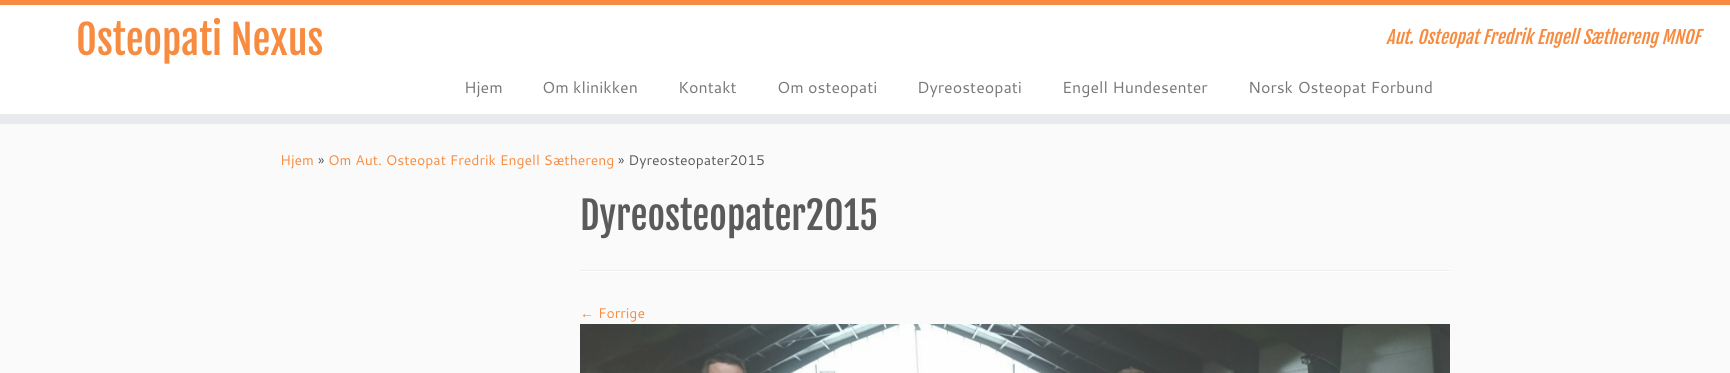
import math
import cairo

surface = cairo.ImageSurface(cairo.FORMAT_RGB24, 1730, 373)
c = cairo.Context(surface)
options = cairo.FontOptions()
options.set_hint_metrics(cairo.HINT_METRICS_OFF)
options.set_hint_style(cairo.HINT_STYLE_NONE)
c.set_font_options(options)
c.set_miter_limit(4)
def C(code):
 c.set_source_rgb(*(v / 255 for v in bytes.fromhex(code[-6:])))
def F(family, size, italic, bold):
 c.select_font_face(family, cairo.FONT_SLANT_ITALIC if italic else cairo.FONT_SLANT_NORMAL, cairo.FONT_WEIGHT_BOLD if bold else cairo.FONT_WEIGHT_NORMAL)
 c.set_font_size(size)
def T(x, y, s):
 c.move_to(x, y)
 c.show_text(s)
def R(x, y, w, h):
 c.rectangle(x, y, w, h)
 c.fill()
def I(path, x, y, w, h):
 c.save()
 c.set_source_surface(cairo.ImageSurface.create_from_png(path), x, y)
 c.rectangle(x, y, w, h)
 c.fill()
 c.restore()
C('fafafa')
c.paint()
C('ffffff')
R(0,5,1730,109)
C('f78c40')
R(0,0,1730,5)
C('e9eaee')
R(0,114,1730,10)
F('Fjalla One',40,0,0)
C('f78c40')
T(76,55,'Osteopati Nexus')
F('Fjalla One',18,1,0)
T(1386,44,'Aut. Osteopat Fredrik Engell Sæthereng MNOF')
F('Cantarell',16,0,0)
C('777777')
T(464,93,'Hjem')
T(542,93,'Om klinikken')
T(678,93,'Kontakt')
T(777,93,'Om osteopati')
T(917,93,'Dyreosteopati')
T(1062,93,'Engell Hundesenter')
T(1248,93,'Norsk Osteopat Forbund')
F('Cantarell',14,0,0)
C('f78c40')
T(280,165,'Hjem')
C('5a5a5a')
T(318,165,'»')
C('f78c40')
T(328,165,'Om Aut. Osteopat Fredrik Engell Sæthereng')
C('5a5a5a')
T(618,165,'» Dyreosteopater2015')
F('Fjalla One',38,0,0)
T(580,230,'Dyreosteopater2015')
C('eeeeee')
R(580,270,870,1)
C('ffffff')
R(580,271,870,1)
F('Liberation Serif',14,0,0)
C('f78c40')
T(580,318,'←')
F('Cantarell',14,0,0)
T(598,318,'Forrige')
I('1.png',580,324,870,49)
surface.write_to_png('o.png')
